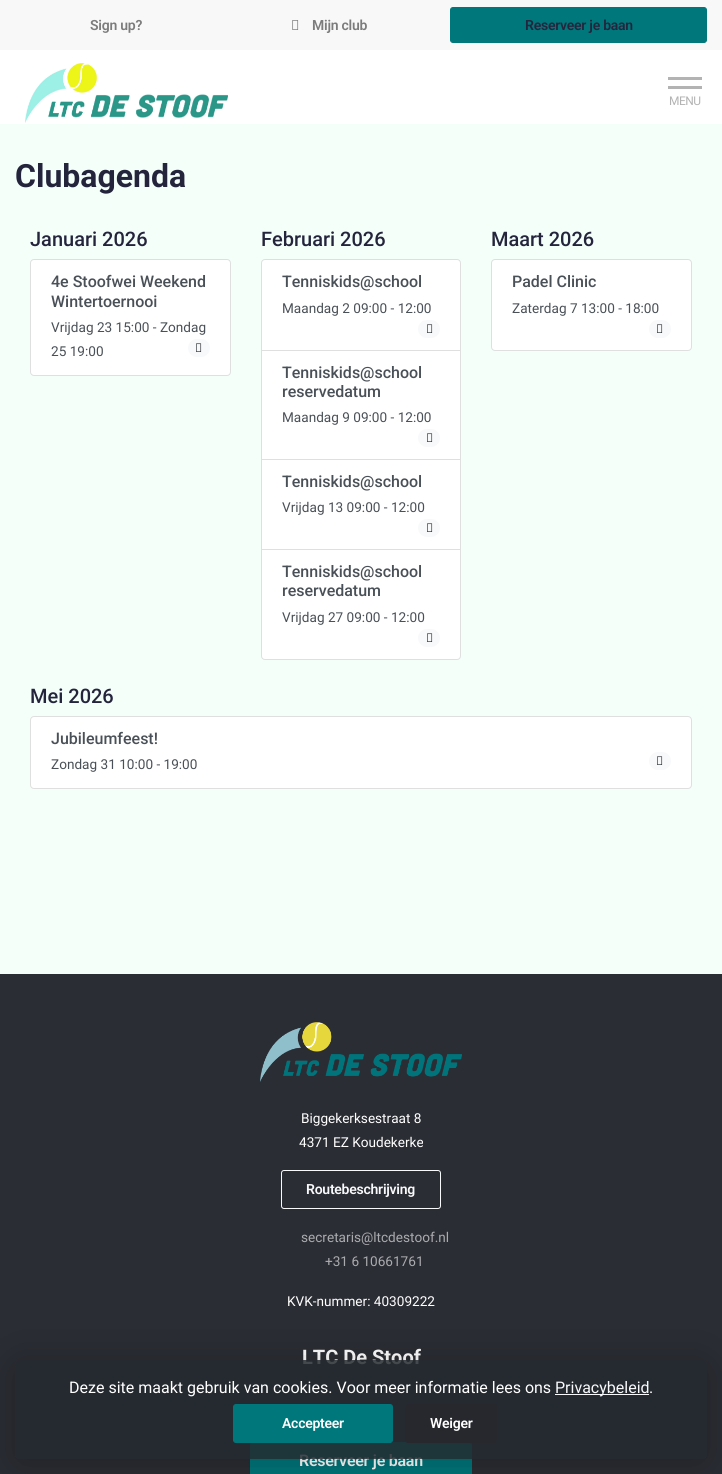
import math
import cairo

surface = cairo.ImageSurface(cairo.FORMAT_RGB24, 722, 1474)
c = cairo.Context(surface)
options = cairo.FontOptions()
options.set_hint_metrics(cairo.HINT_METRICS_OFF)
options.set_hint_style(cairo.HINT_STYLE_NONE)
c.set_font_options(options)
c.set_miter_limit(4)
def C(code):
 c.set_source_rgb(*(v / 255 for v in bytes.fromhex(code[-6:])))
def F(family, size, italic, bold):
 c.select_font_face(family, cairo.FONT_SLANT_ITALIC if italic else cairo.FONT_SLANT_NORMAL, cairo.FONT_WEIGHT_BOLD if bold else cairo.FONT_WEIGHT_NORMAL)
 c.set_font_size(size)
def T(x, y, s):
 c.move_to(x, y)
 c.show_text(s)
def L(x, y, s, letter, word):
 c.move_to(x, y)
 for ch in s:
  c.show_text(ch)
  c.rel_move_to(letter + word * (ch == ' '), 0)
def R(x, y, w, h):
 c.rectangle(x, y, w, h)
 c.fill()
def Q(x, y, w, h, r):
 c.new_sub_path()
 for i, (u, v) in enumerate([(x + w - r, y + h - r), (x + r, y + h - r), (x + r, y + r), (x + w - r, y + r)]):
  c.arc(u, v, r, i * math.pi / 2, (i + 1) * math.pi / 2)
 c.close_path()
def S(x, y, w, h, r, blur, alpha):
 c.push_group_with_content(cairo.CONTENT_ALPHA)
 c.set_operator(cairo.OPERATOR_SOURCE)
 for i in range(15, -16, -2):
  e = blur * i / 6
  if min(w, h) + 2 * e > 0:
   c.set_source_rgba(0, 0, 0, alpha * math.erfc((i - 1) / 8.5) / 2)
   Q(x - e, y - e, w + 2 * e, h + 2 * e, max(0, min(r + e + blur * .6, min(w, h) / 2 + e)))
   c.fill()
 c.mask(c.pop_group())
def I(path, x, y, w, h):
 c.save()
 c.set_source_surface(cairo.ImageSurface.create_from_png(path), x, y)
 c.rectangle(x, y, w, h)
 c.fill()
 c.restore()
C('f5fffa')
c.paint()
C('ffffff')
R(0,50,722,74)
C('f8f8f8')
R(0,0,722,50)
F('Roboto SemiBold',14,0,0)
C('7c7c7c')
L(90,30,'Sign up?',-.25,0)
I('1.png',292,20,7,10)
L(312,30,'Mijn club',-.25,0)
C('00777b')
Q(450.5,7.5,256,35,2.5)
c.fill_preserve()
c.set_line_width(1)
c.stroke()
C('24253d')
L(525,30,'Reserveer je baan',-.25,0)
I('2.png',25,63,203,60)
C('b3b3b3')
R(668,77,34,3)
R(668,86,34,3)
F('Roboto',12,0,0)
L(669,105,'MENU',-.5,0)
F('Roboto',32,0,1)
C('24253d')
T(15,187,'Clubagenda')
F('Roboto Medium',20,0,0)
T(30,246,'Januari 2026')
C('ffffff')
Q(30.5,259.5,200,116,3.5)
c.fill_preserve()
C('dfdfdf')
c.stroke()
F('Roboto Medium',16,0,0)
C('495057')
T(51,287,'4e Stoofwei Weekend')
T(51,307,'Wintertoernooi')
F('Roboto',13.6,0,0)
T(51,332,'Vrijdag 23 15:00 - Zondag')
T(51,356,'25 19:00')
C('f8f9fa')
Q(188,339,22,18,9)
c.fill()
I('3.png',196,343,6,9)
F('Roboto Medium',20,0,0)
C('24253d')
T(261,246,'Februari 2026')
C('ffffff')
c.new_path()
c.move_to(265,259.5)
c.line_to(457,259.5)
c.curve_to(459,259.5,460.5,261,460.5,263)
c.line_to(460.5,350.5)
c.line_to(261.5,350.5)
c.line_to(261.5,263)
c.curve_to(261.5,261,263,259.5,265,259.5)
c.close_path()
c.fill_preserve()
C('dfdfdf')
c.stroke()
F('Roboto Medium',16,0,0)
C('495057')
T(282,287,'Tenniskids@school')
F('Roboto',13.6,0,0)
T(282,313,'Maandag 2 09:00 - 12:00')
C('f8f9fa')
Q(418,320,22,18,9)
c.fill()
I('3.png',427,324,6,9)
C('ffffff')
c.rectangle(261.5,350.5,199,109)
c.fill_preserve()
C('dfdfdf')
c.stroke()
F('Roboto Medium',16,0,0)
C('495057')
T(282,378,'Tenniskids@school')
T(282,397,'reservedatum')
F('Roboto',13.6,0,0)
T(282,422,'Maandag 9 09:00 - 12:00')
C('f8f9fa')
Q(418,429,22,18,9)
c.fill()
I('3.png',427,433,6,9)
C('ffffff')
c.rectangle(261.5,459.5,199,90)
c.fill_preserve()
C('dfdfdf')
c.stroke()
F('Roboto Medium',16,0,0)
C('495057')
T(282,487,'Tenniskids@school')
F('Roboto',13.6,0,0)
T(282,512,'Vrijdag 13 09:00 - 12:00')
C('f8f9fa')
Q(418,519,22,18,9)
c.fill()
I('3.png',427,523,6,9)
C('ffffff')
c.new_path()
c.move_to(261.5,549.5)
c.line_to(460.5,549.5)
c.line_to(460.5,656)
c.curve_to(460.5,658,459,659.5,457,659.5)
c.line_to(265,659.5)
c.curve_to(263,659.5,261.5,658,261.5,656)
c.close_path()
c.fill_preserve()
C('dfdfdf')
c.stroke()
F('Roboto Medium',16,0,0)
C('495057')
T(282,577,'Tenniskids@school')
T(282,596,'reservedatum')
F('Roboto',13.6,0,0)
T(282,622,'Vrijdag 27 09:00 - 12:00')
C('f8f9fa')
Q(418,629,22,18,9)
c.fill()
I('3.png',427,633,6,9)
F('Roboto Medium',20,0,0)
C('24253d')
T(491,246,'Maart 2026')
C('ffffff')
Q(491.5,259.5,200,91,3.5)
c.fill_preserve()
C('dfdfdf')
c.stroke()
F('Roboto Medium',16,0,0)
C('495057')
T(512,287,'Padel Clinic')
F('Roboto',13.6,0,0)
T(512,313,'Zaterdag 7 13:00 - 18:00')
C('f8f9fa')
Q(649,320,22,18,9)
c.fill()
I('3.png',657,324,6,9)
F('Roboto Medium',20,0,0)
C('24253d')
T(30,703,'Mei 2026')
C('ffffff')
Q(30.5,716.5,661,72,3.5)
c.fill_preserve()
C('dfdfdf')
c.stroke()
F('Roboto Medium',16,0,0)
C('495057')
T(51,744,'Jubileumfeest!')
F('Roboto',13.6,0,0)
T(51,769,'Zondag 31 10:00 - 19:00')
C('f8f9fa')
Q(649,752,22,18,9)
c.fill()
I('3.png',657,756,6,9)
C('2b2d34')
R(0,974,722,500)
I('4.png',260,1022,202,60)
C('ffffff')
T(301,1123,'Biggekerksestraat 8')
T(299,1147,'4371 EZ Koudekerke')
Q(281.5,1170.5,159,38,2.5)
C('f8f9fa')
c.stroke()
F('Roboto SemiBold',14,0,0)
L(306,1194,'Routebeschrijving',-.25,0)
F('Roboto',13.6,0,0)
C('aaabae')
T(301,1242,'secretaris@ltcdestoof.nl')
T(325,1266,'+31 6 10661761')
C('ffffff')
T(287,1306,'KVK-nummer: 40309222')
F('Roboto',20,0,1)
T(302,1364,'LTC De Stoof')
C('00777b')
Q(250.5,1442.5,221,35,2.5)
c.fill_preserve()
c.stroke()
F('Roboto SemiBold',16,0,0)
C('ffffff')
L(299,1466,'Reserveer je baan',-.25,0)
c.save()
c.set_fill_rule(cairo.FILL_RULE_EVEN_ODD)
c.new_path()
c.move_to(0,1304)
c.line_to(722,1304)
c.line_to(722,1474)
c.line_to(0,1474)
c.close_path()
c.move_to(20,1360)
c.line_to(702,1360)
c.curve_to(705,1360,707,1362,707,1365)
c.line_to(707,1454)
c.curve_to(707,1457,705,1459,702,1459)
c.line_to(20,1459)
c.curve_to(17,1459,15,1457,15,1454)
c.line_to(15,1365)
c.curve_to(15,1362,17,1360,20,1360)
c.close_path()
c.clip()
C('000000')
S(15,1365,692,99,5,20,.25)
c.restore()
c.set_source_rgba(0.141,0.165,0.188,0.85)
Q(15,1360,692,99,5)
c.fill()
F('Roboto',16,0,0)
C('ffffff')
T(69,1393,'Deze site maakt gebruik van cookies. Voor meer informatie lees ons')
C('f8f9fa')
R(555,1394,94,1)
T(555,1393,'Privacybeleid')
C('ffffff')
T(649,1393,'.')
C('00777b')
Q(233.5,1404.5,159,38,2.5)
c.fill_preserve()
c.stroke()
F('Roboto SemiBold',14,0,0)
C('ffffff')
L(282,1428,'Accepteer',-.25,0)
C('26282e')
Q(405.5,1404.5,91,38,2.5)
c.fill_preserve()
c.stroke()
C('ffffff')
L(430,1428,'Weiger',-.25,0)
surface.write_to_png('o.png')
